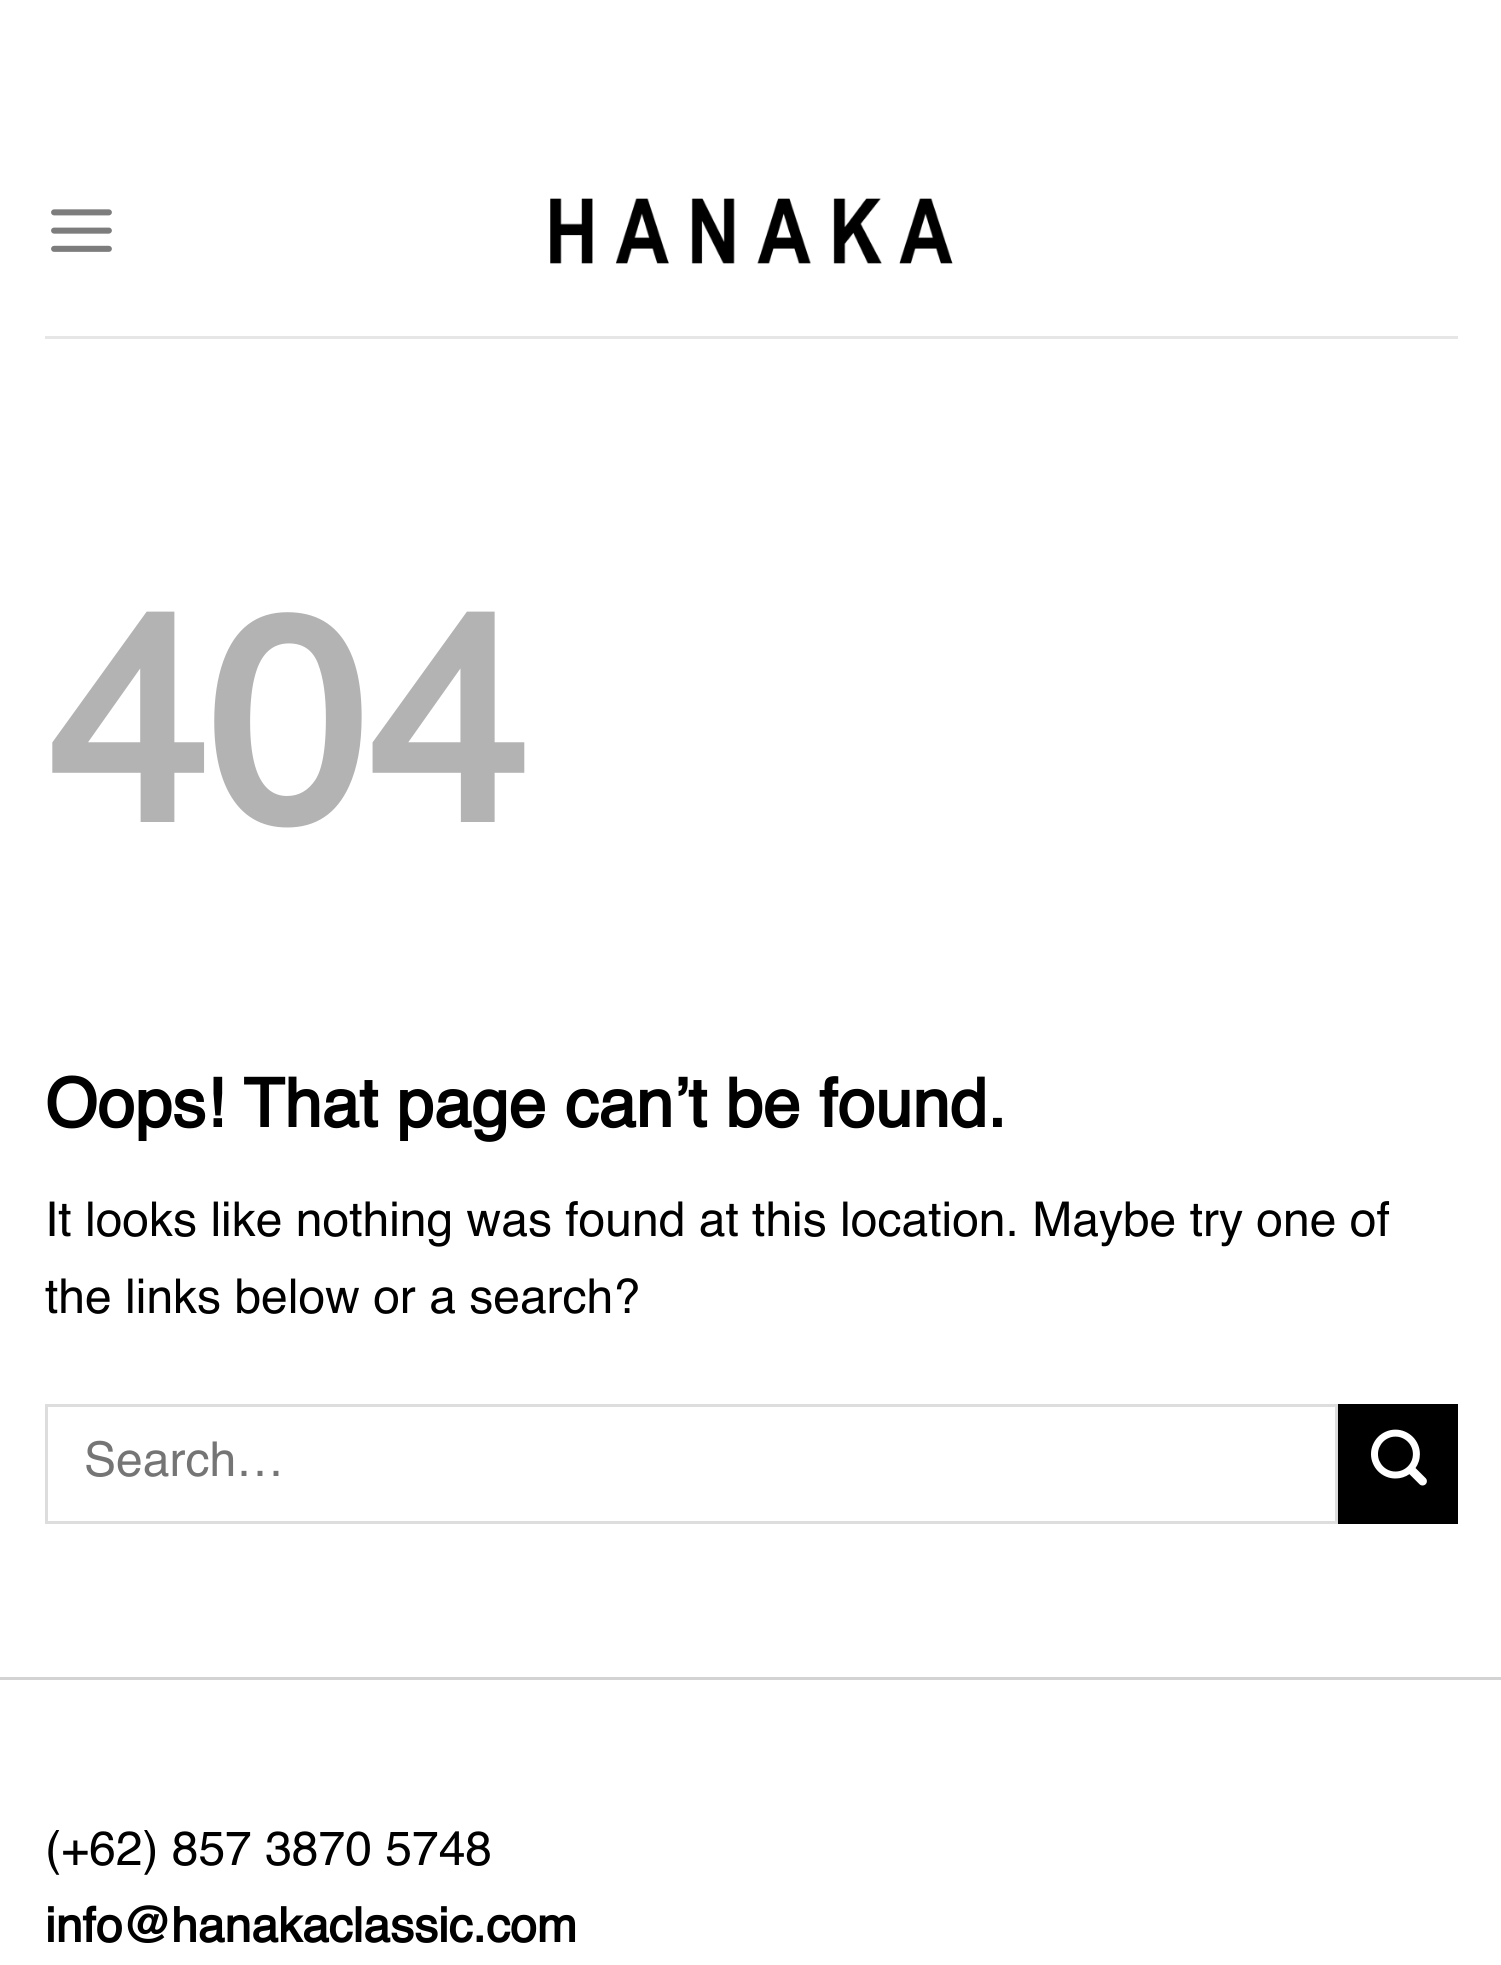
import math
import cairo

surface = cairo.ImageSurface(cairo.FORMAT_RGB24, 1501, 1965)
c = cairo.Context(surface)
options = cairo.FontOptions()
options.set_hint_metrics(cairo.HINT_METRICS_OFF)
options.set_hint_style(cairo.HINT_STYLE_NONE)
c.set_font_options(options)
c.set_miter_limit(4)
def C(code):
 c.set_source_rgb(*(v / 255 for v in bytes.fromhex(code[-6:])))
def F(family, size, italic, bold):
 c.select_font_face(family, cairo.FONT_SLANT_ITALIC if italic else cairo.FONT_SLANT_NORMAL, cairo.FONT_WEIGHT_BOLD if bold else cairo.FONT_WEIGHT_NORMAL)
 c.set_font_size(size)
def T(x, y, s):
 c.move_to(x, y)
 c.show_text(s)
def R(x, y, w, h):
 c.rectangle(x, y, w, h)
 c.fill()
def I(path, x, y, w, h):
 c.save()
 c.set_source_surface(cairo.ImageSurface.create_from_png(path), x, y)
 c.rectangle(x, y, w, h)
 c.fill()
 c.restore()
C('ffffff')
c.paint()
I('1.png',51,209,61,43)
I('2.png',550,198,403,66)
C('e6e6e6')
R(45,336,1413,3)
F('Helvetica',288,0,1)
C('b3b3b3')
T(45,822,'404')
F('Helvetica',67.25,0,1)
C('000000')
T(45,1127,'Oops! That page can’t be found.')
F('Helvetica',48,0,0)
T(45,1236,'It looks like nothing was found at this location. Maybe try one of')
T(45,1313,'the links below or a search?')
c.rectangle(46.5,1405.5,1290,117)
C('dddddd')
c.set_line_width(3)
c.stroke()
C('757575')
T(84,1476,'Search…')
C('000000')
R(1338,1404,120,120)
I('3.png',1371,1429,56,57)
C('d3d3d3')
R(0,1677,1501,3)
C('000000')
T(45,1865,'(+62) 857 3870 5748')
F('Helvetica',48,0,1)
T(45,1942,'info@hanakaclassic.com')
surface.write_to_png('o.png')
